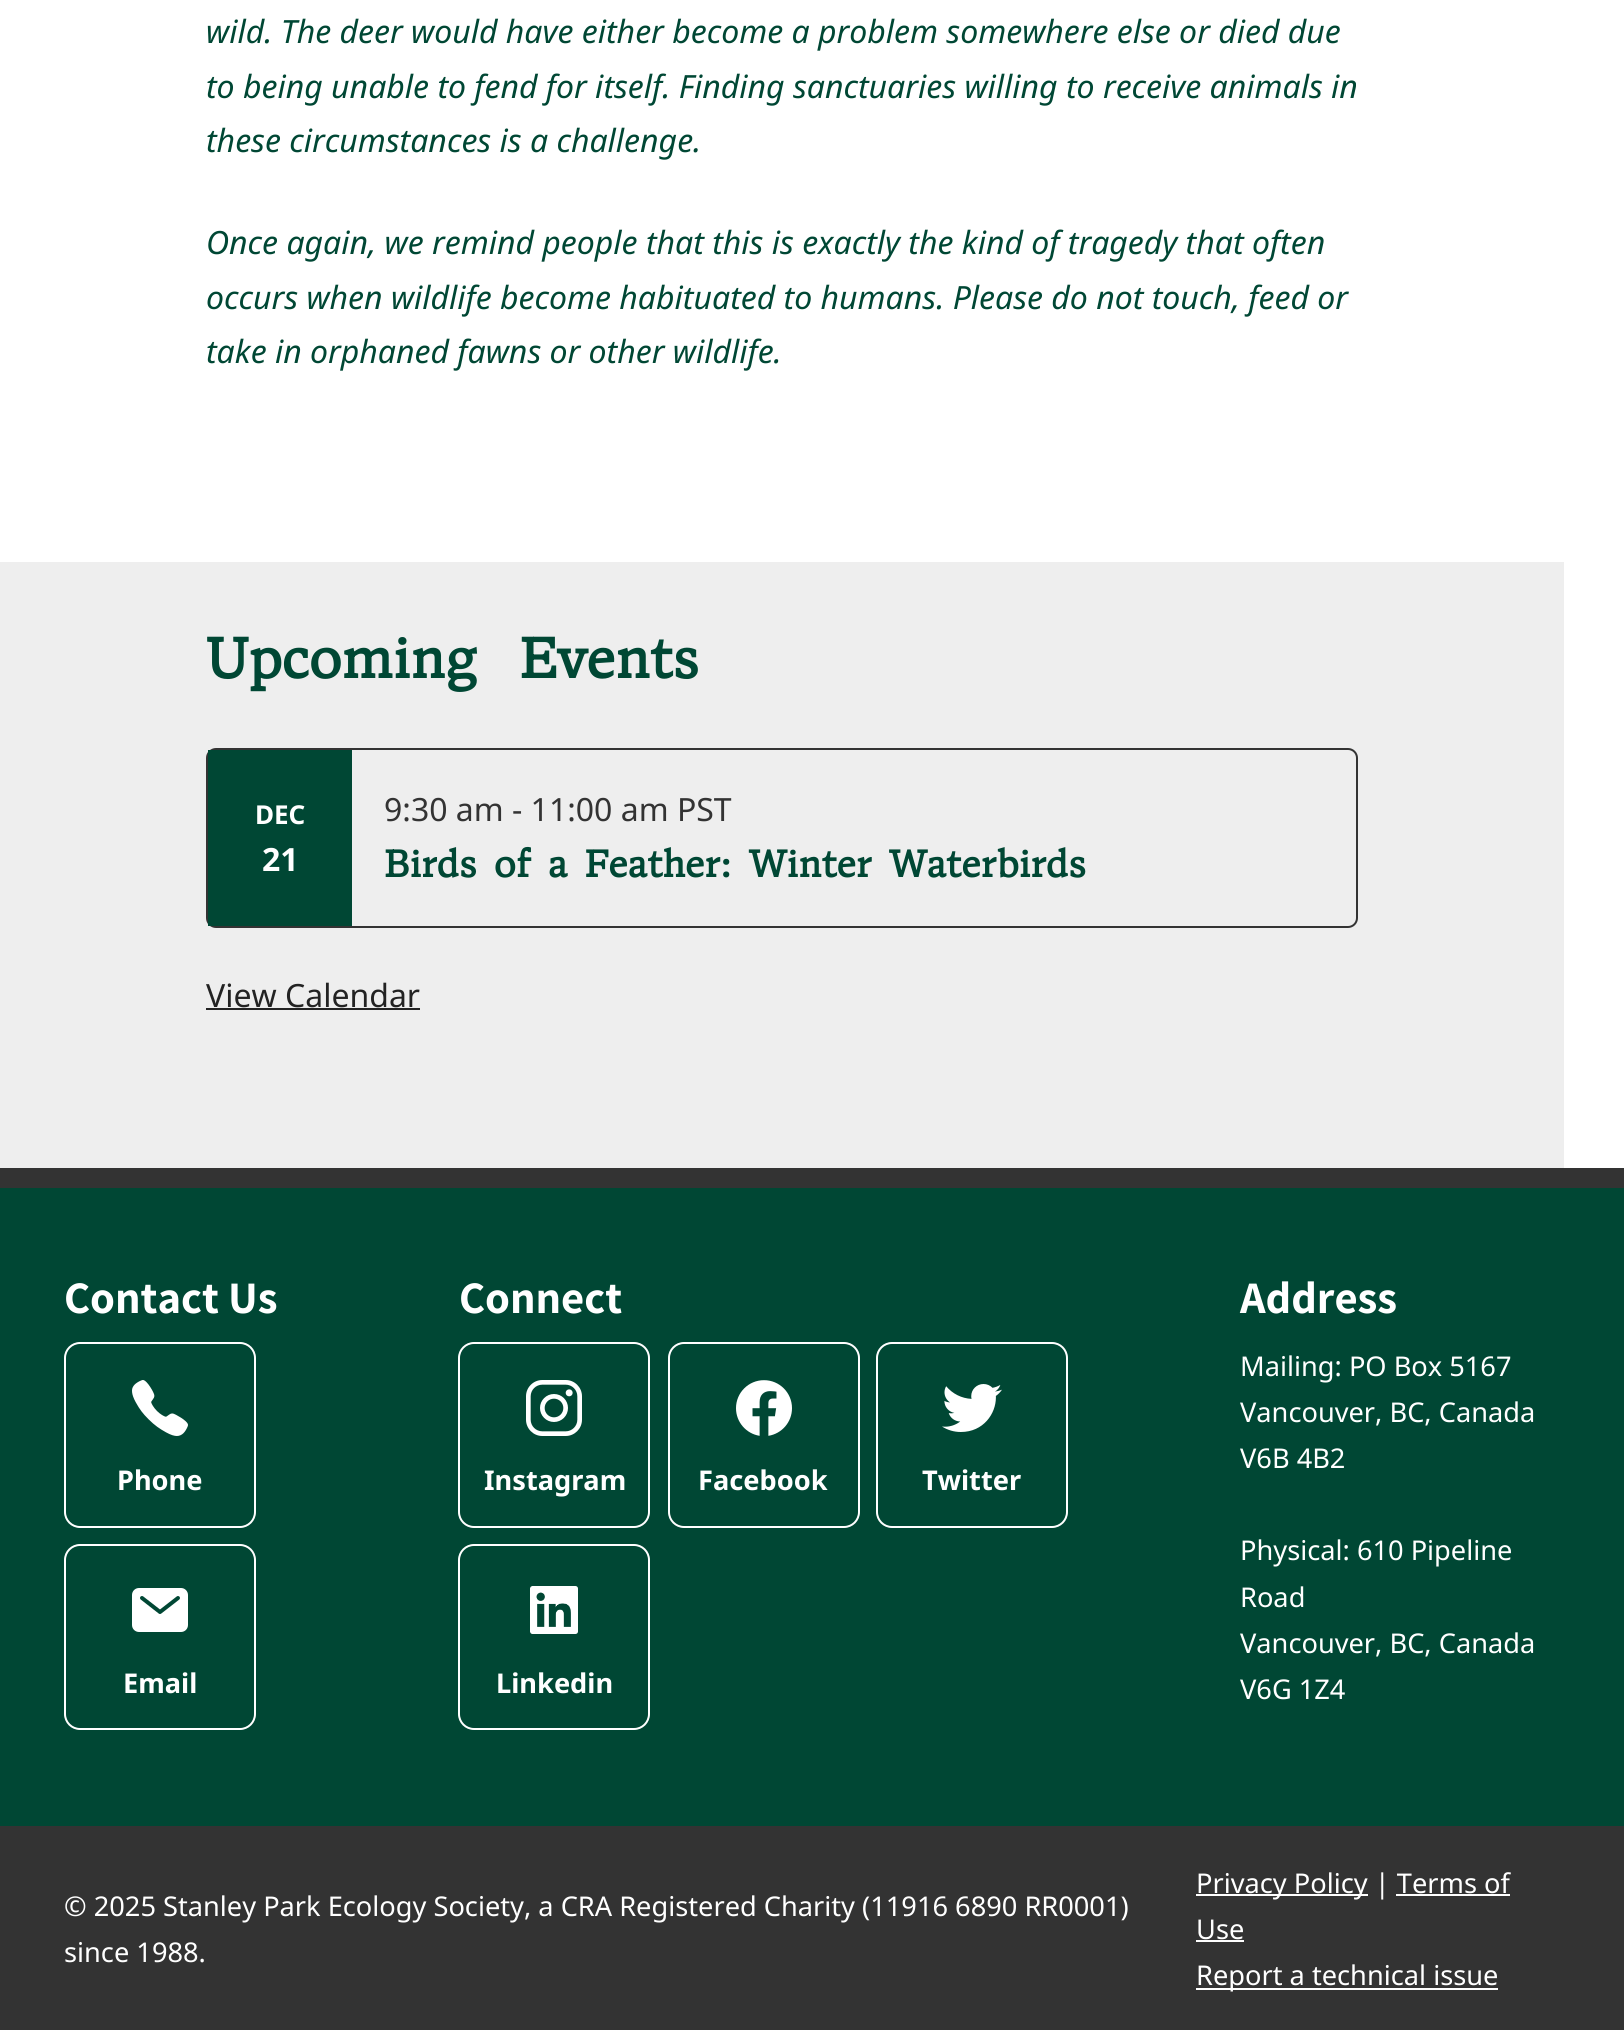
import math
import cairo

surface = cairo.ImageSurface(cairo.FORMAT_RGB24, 1624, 2030)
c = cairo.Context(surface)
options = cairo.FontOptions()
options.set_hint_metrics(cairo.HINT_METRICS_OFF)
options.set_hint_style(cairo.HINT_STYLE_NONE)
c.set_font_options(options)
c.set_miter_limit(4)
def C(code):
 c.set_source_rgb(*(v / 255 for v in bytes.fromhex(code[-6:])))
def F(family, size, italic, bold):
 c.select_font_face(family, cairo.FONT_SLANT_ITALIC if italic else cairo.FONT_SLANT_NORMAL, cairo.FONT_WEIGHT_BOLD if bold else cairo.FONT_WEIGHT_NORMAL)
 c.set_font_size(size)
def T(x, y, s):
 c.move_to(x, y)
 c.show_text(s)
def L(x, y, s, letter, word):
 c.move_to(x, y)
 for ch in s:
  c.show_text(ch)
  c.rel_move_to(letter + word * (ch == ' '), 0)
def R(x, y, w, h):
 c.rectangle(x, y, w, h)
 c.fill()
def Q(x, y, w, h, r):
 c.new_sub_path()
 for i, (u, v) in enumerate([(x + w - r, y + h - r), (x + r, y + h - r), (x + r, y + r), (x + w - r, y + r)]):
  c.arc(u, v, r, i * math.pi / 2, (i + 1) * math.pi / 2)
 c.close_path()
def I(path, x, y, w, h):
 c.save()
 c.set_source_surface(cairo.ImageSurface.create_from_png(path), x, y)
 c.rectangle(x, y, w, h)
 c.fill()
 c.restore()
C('ffffff')
c.paint()
F('Noto Sans',32,1,0)
C('004734')
T(206,43,'wild. The deer would have either become a problem somewhere else or died due')
T(206,98,'to being unable to fend for itself. Finding sanctuaries willing to receive animals in')
T(206,152,'these circumstances is a challenge.')
T(206,254,'Once again, we remind people that this is exactly the kind of tragedy that often')
T(206,309,'occurs when wildlife become habituated to humans. Please do not touch, feed or')
T(206,363,'take in orphaned fawns or other wildlife.')
C('eeeeee')
R(0,562,1564,606)
F('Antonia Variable',57.5,0,1)
C('004734')
L(206,678,'Upcoming Events',0,30)
Q(207,749,1150,178,9)
C('333333')
c.stroke()
C('004734')
R(208,750,144,176)
F('Noto Sans',26,0,1)
C('ffffff')
T(255,824,'DEC')
F('Noto Sans',32,0,1)
T(262,871,'21')
F('Noto Sans',32,0,0)
C('333333')
T(384,821,'9:30 am - 11:00 am PST')
F('Antonia Variable',38.4,0,1)
C('004734')
L(384,877,'Birds of a Feather: Winter Waterbirds',0,8.5)
F('Noto Sans',32,0,0)
C('232323')
T(206,1007,'View Calendar')
R(206,1008,214,2)
C('333333')
R(0,1168,1624,20)
C('004734')
R(0,1188,1624,638)
F('Assistant',45,0,1)
C('ffffff')
T(64,1313,'Contact Us')
Q(65,1343,190,184,15)
c.stroke()
I('1.png',132,1380,56,56)
F('Noto Sans',27.2,0,1)
T(117,1490,'Phone')
Q(65,1545,190,184,15)
c.stroke()
I('2.png',132,1588,56,44)
T(123,1693,'Email')
F('Assistant',45,0,1)
T(459,1313,'Connect')
Q(459,1343,190,184,15)
c.stroke()
I('3.png',526,1380,56,56)
F('Noto Sans',27.2,0,1)
T(484,1490,'Instagram')
Q(669,1343,190,184,15)
c.stroke()
I('4.png',736,1380,56,56)
T(698,1490,'Facebook')
Q(877,1343,190,184,15)
c.stroke()
I('5.png',942,1384,60,48)
T(922,1490,'Twitter')
Q(459,1545,190,184,15)
c.stroke()
I('6.png',530,1586,48,48)
T(496,1693,'Linkedin')
F('Assistant',45,0,1)
T(1240,1313,'Address')
F('Noto Sans',27.2,0,0)
T(1240,1376,'Mailing: PO Box 5167')
T(1240,1422,'Vancouver, BC, Canada')
T(1240,1468,'V6B 4B2')
T(1240,1560,'Physical: 610 Pipeline')
T(1240,1607,'Road')
T(1240,1653,'Vancouver, BC, Canada')
T(1240,1699,'V6G 1Z4')
C('333333')
R(0,1826,1624,204)
C('ffffff')
T(64,1916,'© 2025 Stanley Park Ecology Society, a CRA Registered Charity (11916 6890 RR0001)')
T(64,1962,'since 1988.')
R(1196,1894,172,2)
T(1196,1893,'Privacy Policy | Terms of')
T(1196,1939,'Use')
R(1396,1894,114,2)
R(1196,1940,48,2)
R(1196,1988,302,2)
T(1196,1985,'Report a technical issue')
surface.write_to_png('o.png')
